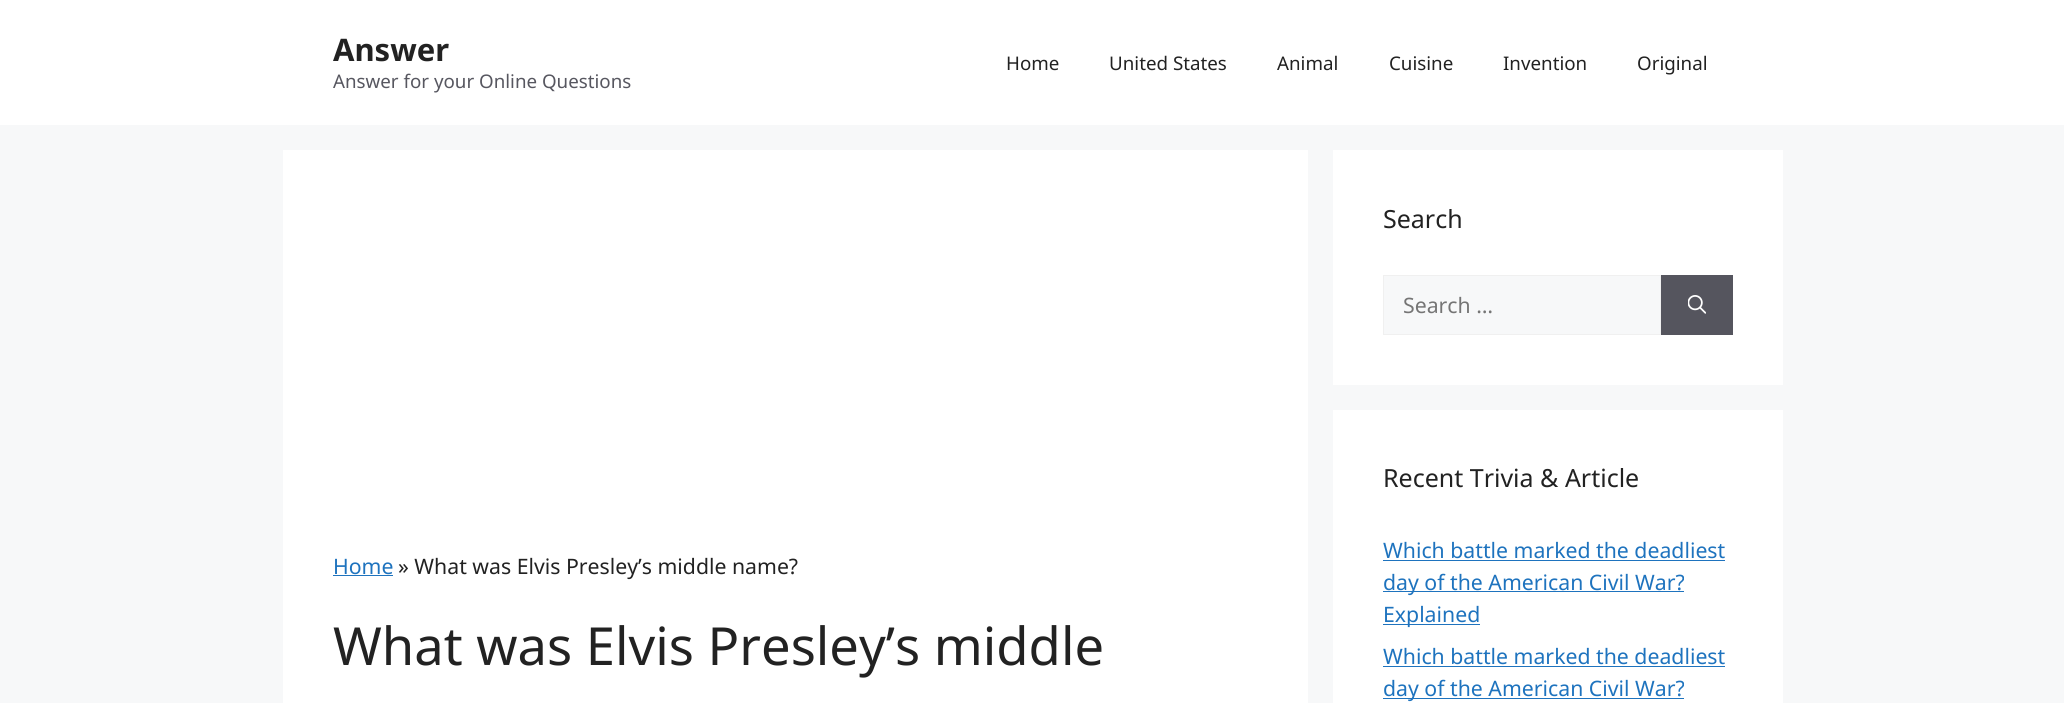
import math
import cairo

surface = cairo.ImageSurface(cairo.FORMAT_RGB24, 2064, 703)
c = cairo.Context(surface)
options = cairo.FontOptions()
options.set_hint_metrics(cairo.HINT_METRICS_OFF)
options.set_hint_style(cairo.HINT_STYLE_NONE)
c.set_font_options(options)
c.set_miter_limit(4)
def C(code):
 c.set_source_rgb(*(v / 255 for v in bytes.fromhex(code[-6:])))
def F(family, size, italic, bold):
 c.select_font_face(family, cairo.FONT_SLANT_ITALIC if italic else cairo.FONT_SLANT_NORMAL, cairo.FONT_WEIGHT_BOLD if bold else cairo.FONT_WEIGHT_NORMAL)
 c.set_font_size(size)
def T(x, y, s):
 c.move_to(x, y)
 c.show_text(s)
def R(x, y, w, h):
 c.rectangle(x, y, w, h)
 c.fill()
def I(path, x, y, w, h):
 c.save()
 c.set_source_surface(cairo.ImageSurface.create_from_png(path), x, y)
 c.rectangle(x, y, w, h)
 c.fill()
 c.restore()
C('f7f8f9')
c.paint()
C('ffffff')
R(0,0,2064,125)
F('Noto Sans',31,0,1)
C('222222')
T(333,61,'Answer')
F('Noto Sans',18.75,0,0)
C('575760')
T(333,88,'Answer for your Online Questions')
C('222222')
T(1006,70,'Home')
T(1109,70,'United States')
T(1277,70,'Animal')
T(1389,70,'Cuisine')
T(1503,70,'Invention')
T(1637,70,'Original')
C('ffffff')
R(283,150,1025,553)
F('Noto Sans',21.25,0,0)
C('1e73be')
T(333,574,'Home')
R(333,575,60,1)
C('222222')
T(398,574,'» What was Elvis Presley’s middle name?')
F('Noto Sans',52.5,0,0)
T(333,665,'What was Elvis Presley’s middle')
C('ffffff')
R(1333,150,450,235)
F('Noto Sans',25,0,0)
C('222222')
T(1383,228,'Search')
C('f7f8f9')
c.rectangle(1383.5,275.5,277,59)
c.fill_preserve()
C('f0f0f0')
c.set_line_width(1)
c.stroke()
F('Noto Sans',21.25,0,0)
C('757575')
T(1403,313,'Search …')
C('55555e')
R(1661,275,72,60)
I('1.png',1688,295,18,19)
C('ffffff')
R(1333,410,450,293)
F('Noto Sans',25,0,0)
C('222222')
T(1383,487,'Recent Trivia & Article')
F('Noto Sans',21.25,0,0)
C('1e73be')
T(1383,558,'Which battle marked the deadliest')
R(1383,560,342,1)
R(1383,591,301,1)
T(1383,590,'day of the American Civil War?')
R(1383,624,97,1)
T(1383,622,'Explained')
T(1383,664,'Which battle marked the deadliest')
R(1383,666,342,1)
R(1383,698,301,1)
T(1383,696,'day of the American Civil War?')
surface.write_to_png('o.png')
